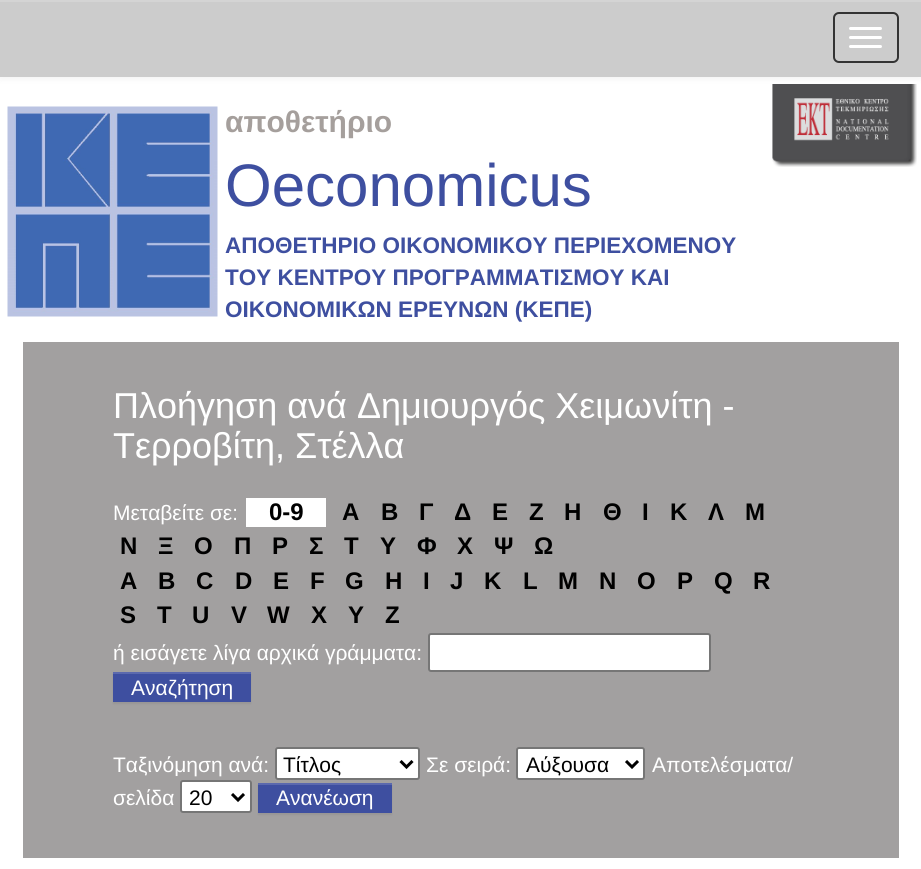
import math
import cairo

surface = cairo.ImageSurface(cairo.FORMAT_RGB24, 921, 869)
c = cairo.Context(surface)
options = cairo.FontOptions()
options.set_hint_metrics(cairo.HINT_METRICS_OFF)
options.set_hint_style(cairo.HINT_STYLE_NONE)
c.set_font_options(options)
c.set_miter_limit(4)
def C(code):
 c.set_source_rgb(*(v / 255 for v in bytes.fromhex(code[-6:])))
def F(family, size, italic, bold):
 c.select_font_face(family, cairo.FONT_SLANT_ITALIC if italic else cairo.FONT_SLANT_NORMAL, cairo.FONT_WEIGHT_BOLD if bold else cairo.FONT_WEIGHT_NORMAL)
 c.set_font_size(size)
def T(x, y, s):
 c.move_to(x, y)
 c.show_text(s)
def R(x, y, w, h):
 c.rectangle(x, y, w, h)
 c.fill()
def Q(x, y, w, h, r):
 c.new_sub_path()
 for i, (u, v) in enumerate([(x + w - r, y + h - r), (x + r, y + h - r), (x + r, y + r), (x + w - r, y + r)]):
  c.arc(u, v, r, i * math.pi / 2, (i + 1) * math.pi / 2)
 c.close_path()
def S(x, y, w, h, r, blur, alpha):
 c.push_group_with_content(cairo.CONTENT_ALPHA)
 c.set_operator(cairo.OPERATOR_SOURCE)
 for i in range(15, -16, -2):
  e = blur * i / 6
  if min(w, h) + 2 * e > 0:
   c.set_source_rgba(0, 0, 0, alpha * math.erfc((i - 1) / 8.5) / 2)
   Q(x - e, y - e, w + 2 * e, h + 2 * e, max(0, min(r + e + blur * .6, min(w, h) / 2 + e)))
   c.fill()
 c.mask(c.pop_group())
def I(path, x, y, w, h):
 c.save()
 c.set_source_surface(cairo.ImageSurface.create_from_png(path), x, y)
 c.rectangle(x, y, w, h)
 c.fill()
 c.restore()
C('ffffff')
c.paint()
I('2.png',772,84,145,83)
C('000000')
S(0,2,921,76,0,4,.07)
C('cccccc')
R(0,2,921,75)
C('d4d4d4')
R(0,0,921,2)
Q(834,13,64,49,5)
C('333333')
c.stroke()
C('ffffff')
Q(849,27,33,3,1.5)
c.fill()
Q(849,36,33,3,1.5)
c.fill()
Q(849,45,33,3,1.5)
c.fill()
I('1.png',7,106,211,211)
F('Liberation Sans',30,0,1)
C('a59f9c')
T(225,132,'αποθετήριο')
F('Liberation Sans',60,0,0)
C('3e4fa0')
T(225,206,'Oeconomicus')
F('Liberation Sans',22.5,0,1)
T(225,253,'ΑΠΟΘΕΤΗΡΙΟ ΟΙΚΟΝΟΜΙΚΟΥ ΠΕΡΙΕΧΟΜΕΝΟΥ')
T(225,285,'ΤΟΥ ΚΕΝΤΡΟΥ ΠΡΟΓΡΑΜΜΑΤΙΣΜΟΥ ΚΑΙ')
T(225,317,'ΟΙΚΟΝΟΜΙΚΩΝ ΕΡΕΥΝΩΝ (ΚΕΠΕ)')
C('a2a0a0')
R(23,342,876,516)
F('Liberation Sans',36,0,0)
C('ffffff')
T(113,418,'Πλοήγηση ανά Δημιουργός Χειμωνίτη -')
T(113,458,'Τερροβίτη, Στέλλα')
F('Liberation Sans',21,0,0)
T(113,520,'Μεταβείτε σε:')
R(246,498,80,29)
F('Liberation Sans',24,0,1)
C('000000')
T(269,520,'0-9')
T(342,520,'Α')
T(381,520,'Β')
T(419,520,'Γ')
T(454,520,'Δ')
T(492,520,'Ε')
T(529,520,'Ζ')
T(564,520,'Η')
T(603,520,'Θ')
T(642,520,'Ι')
T(670,520,'Κ')
T(708,520,'Λ')
T(745,520,'Μ')
T(120,554,'Ν')
T(158,554,'Ξ')
T(194,554,'Ο')
T(234,554,'Π')
T(272,554,'Ρ')
T(309,554,'Σ')
T(344,554,'Τ')
T(380,554,'Υ')
T(417,554,'Φ')
T(457,554,'Χ')
T(494,554,'Ψ')
T(534,554,'Ω')
T(120,589,'A')
T(158,589,'B')
T(196,589,'C')
T(235,589,'D')
T(273,589,'E')
T(310,589,'F')
T(345,589,'G')
T(385,589,'H')
T(423,589,'I')
T(450,589,'J')
T(484,589,'K')
T(523,589,'L')
T(558,589,'M')
T(599,589,'N')
T(637,589,'O')
T(677,589,'P')
T(714,589,'Q')
T(753,589,'R')
T(120,623,'S')
T(157,623,'T')
T(192,623,'U')
T(231,623,'V')
T(267,623,'W')
T(311,623,'X')
T(348,623,'Y')
T(385,623,'Z')
F('Liberation Sans',21,0,0)
C('ffffff')
T(113,660,'ή εισάγετε λίγα αρχικά γράμματα:')
Q(429,634,281,37,2)
c.fill_preserve()
C('767676')
c.stroke()
C('000000')
S(113,674,138,30,0,1,.07)
C('3e4fa0')
R(113,674,138,28)
C('5b69ae')
R(113,672,138,2)
C('ffffff')
T(131,695,'Αναζήτηση')
T(113,772,'Ταξινόμηση ανά:')
Q(276,748,143,31,2)
c.fill_preserve()
C('767676')
c.stroke()
c.new_path()
c.move_to(400.5,761)
c.line_to(406.5,767)
c.line_to(412.5,761)
C('000000')
c.set_line_width(3)
c.stroke()
T(283,772,'Τίτλος')
C('ffffff')
T(426,772,'Σε σειρά:')
Q(517,748,127,31,2)
c.fill_preserve()
C('767676')
c.set_line_width(2)
c.stroke()
c.new_path()
c.move_to(626,761)
c.line_to(632,767)
c.line_to(638,761)
C('000000')
c.set_line_width(3)
c.stroke()
T(526,772,'Αύξουσα')
C('ffffff')
T(652,772,'Αποτελέσματα/')
T(113,805,'σελίδα')
Q(181,781,70,31,2)
c.fill_preserve()
C('767676')
c.set_line_width(2)
c.stroke()
c.new_path()
c.move_to(232,794)
c.line_to(238,800)
c.line_to(244,794)
C('000000')
c.set_line_width(3)
c.stroke()
T(189,805,'20')
C('000000')
S(258,785,134,30,0,1,.07)
C('3e4fa0')
R(258,785,134,28)
C('5b69ae')
R(258,783,134,2)
C('ffffff')
T(276,805,'Ανανέωση')
surface.write_to_png('o.png')
